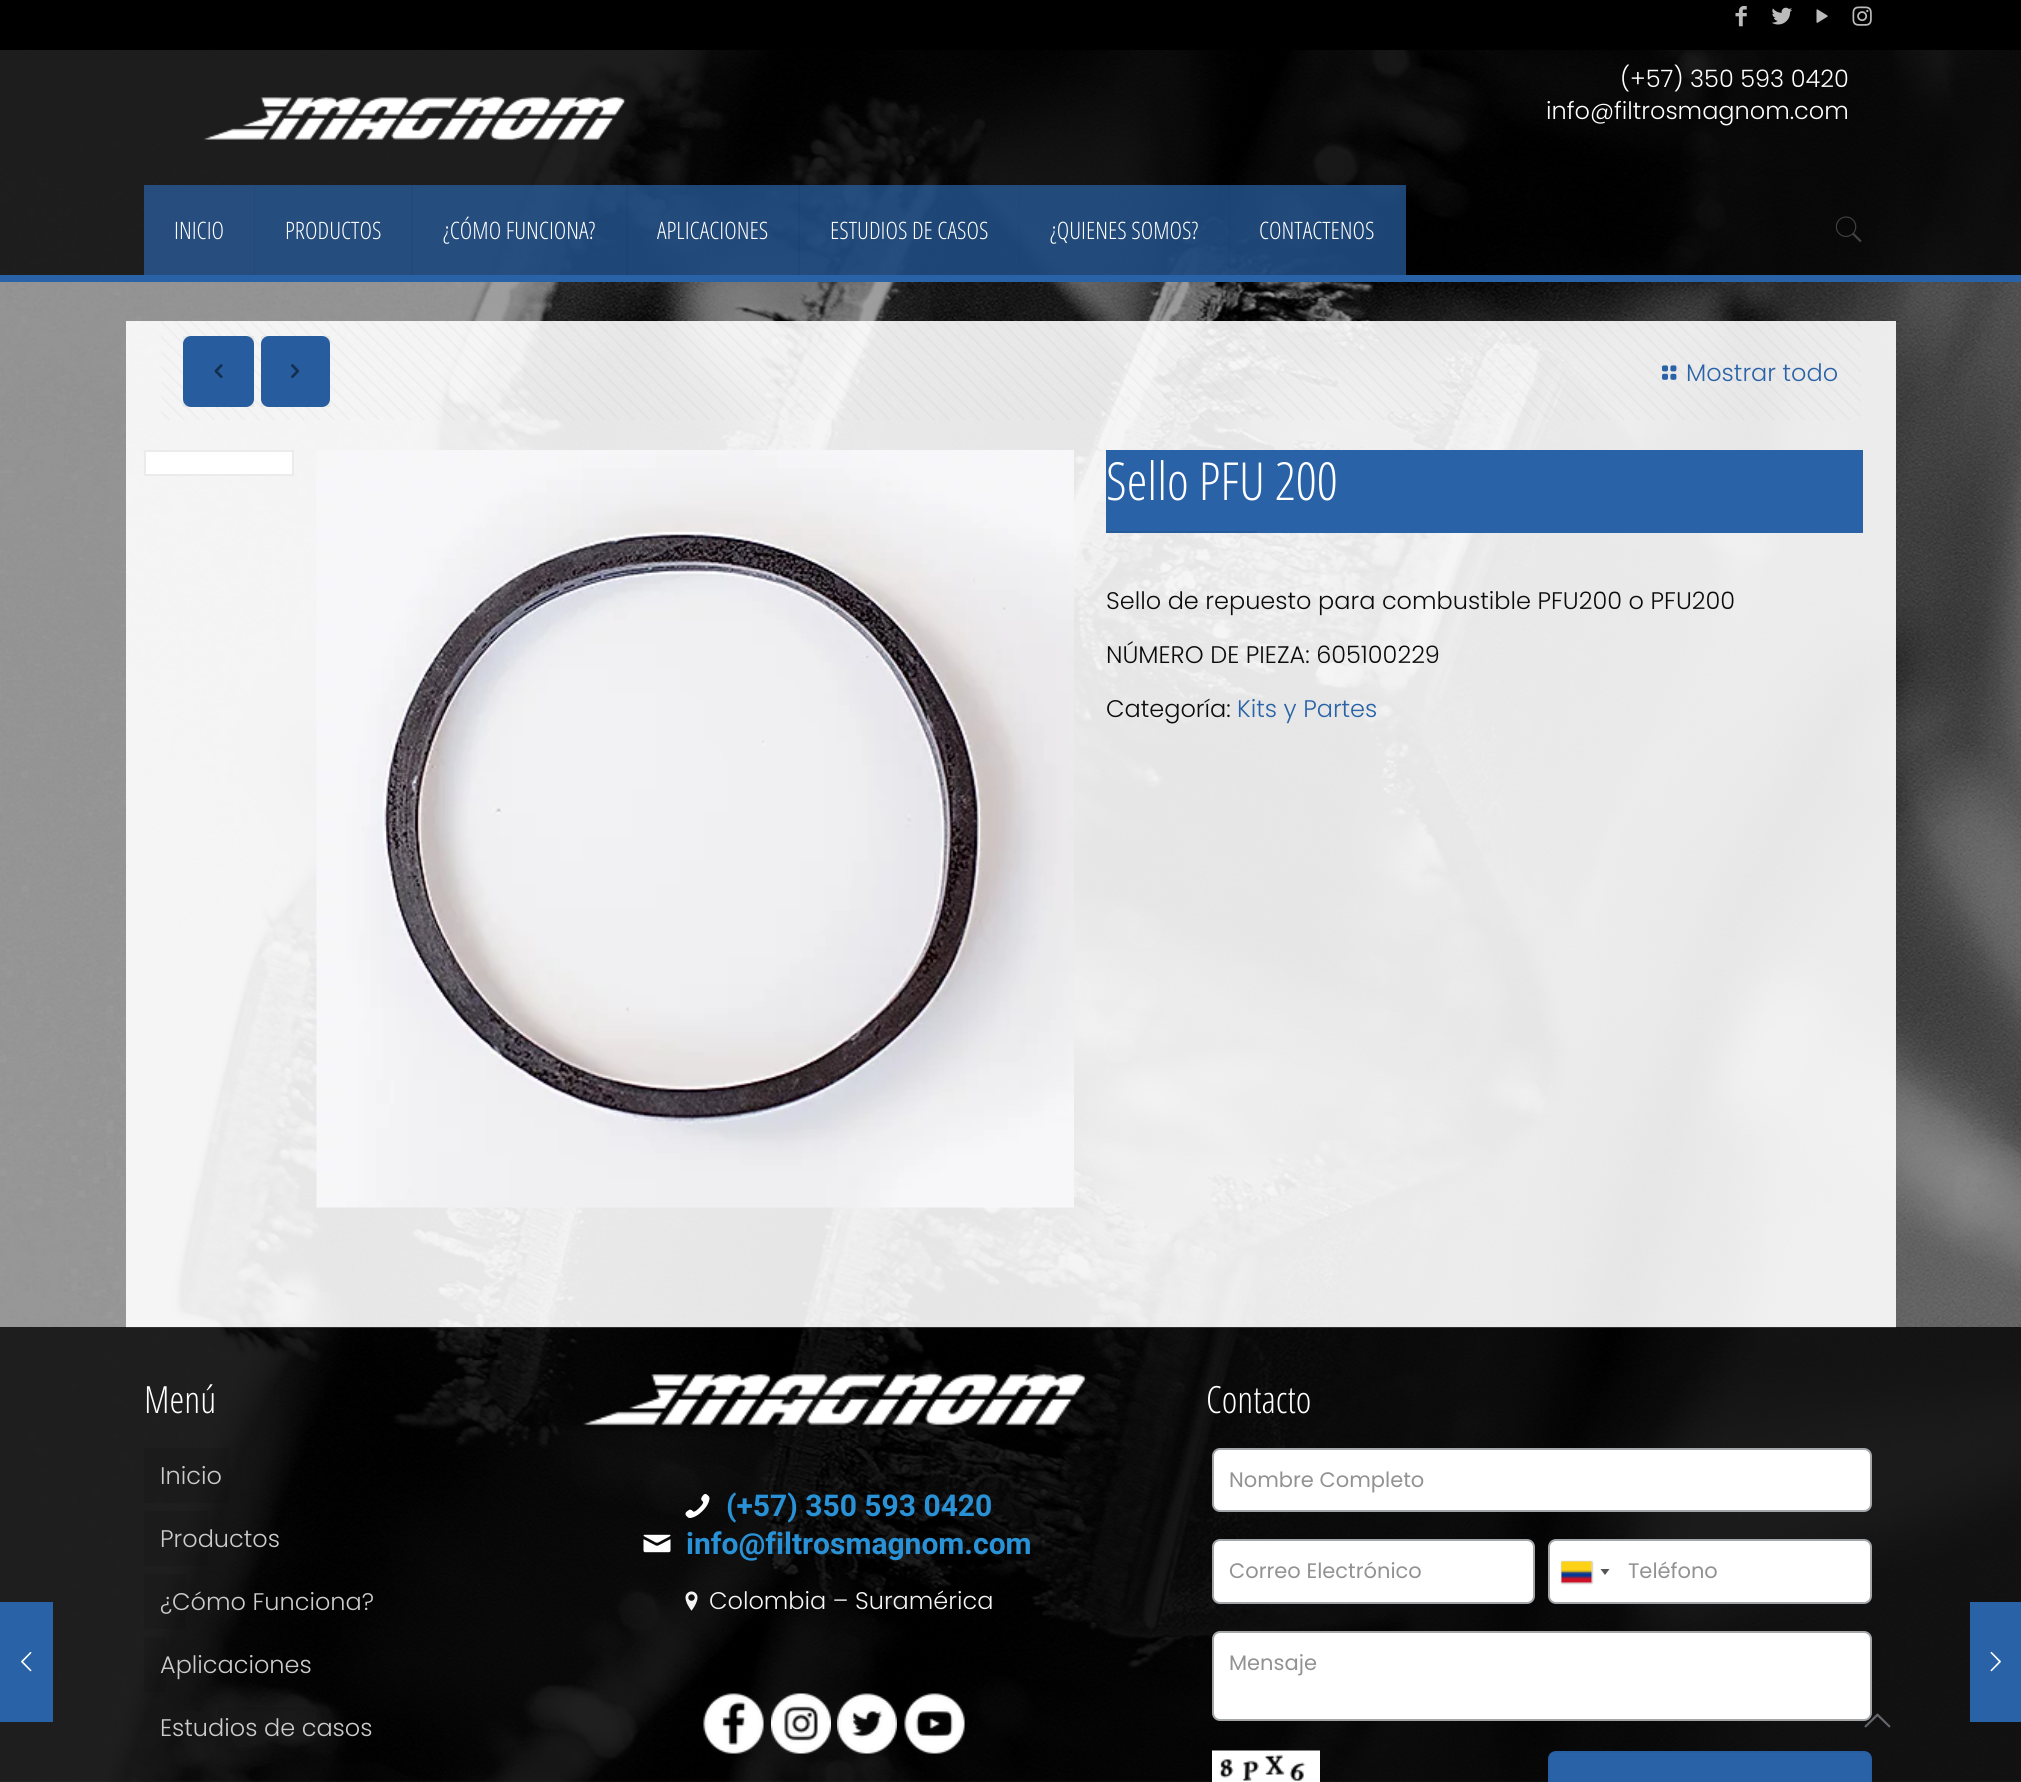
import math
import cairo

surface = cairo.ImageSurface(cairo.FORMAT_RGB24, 2021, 1782)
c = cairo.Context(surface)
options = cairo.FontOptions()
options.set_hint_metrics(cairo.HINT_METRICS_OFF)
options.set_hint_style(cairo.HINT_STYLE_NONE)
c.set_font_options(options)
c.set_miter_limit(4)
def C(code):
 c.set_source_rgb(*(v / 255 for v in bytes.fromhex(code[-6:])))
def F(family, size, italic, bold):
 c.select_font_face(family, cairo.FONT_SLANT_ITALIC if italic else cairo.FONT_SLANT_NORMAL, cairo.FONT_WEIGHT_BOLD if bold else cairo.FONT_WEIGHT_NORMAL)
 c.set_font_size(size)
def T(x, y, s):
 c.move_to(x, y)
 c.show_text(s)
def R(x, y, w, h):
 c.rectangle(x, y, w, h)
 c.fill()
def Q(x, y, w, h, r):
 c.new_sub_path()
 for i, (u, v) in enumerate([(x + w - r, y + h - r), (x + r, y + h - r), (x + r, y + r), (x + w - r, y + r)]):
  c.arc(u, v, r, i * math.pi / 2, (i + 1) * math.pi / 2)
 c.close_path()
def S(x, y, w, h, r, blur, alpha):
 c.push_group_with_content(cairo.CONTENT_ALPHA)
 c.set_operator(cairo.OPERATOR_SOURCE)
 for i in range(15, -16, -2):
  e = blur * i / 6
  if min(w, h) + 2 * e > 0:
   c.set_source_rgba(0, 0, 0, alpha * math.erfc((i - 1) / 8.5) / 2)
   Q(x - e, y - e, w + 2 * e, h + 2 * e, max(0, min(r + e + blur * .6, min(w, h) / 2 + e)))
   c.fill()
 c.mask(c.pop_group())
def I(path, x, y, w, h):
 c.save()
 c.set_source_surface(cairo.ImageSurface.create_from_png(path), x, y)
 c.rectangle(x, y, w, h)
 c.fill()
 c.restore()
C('ffffff')
c.paint()
I('1.png',0,50,2021,1732)
c.set_source_rgba(1,1,1,0.9)
R(126,321,1770,1007)
c.set_source_rgba(0,0,0,0.8)
R(0,1327,2021,455)
C('2962a7')
R(0,1602,53,120)
I('2.png',21,1651,11,21)
C('000000')
R(0,0,2021,50)
I('3.png',1735,6,12,21)
I('4.png',1771,7,21,18)
I('5.png',1816,9,12,14)
I('6.png',1852,6,20,20)
c.set_source_rgba(0,0,0,0.8)
R(0,50,2021,225)
C('2962a7')
R(0,275,2021,7)
I('7.png',203,96,423,45)
F('Poppins Light',24,0,0)
C('ffffff')
T(1620,87,'(+57) 350 593 0420')
T(1546,119,'info@filtrosmagnom.com')
C('264d7e')
R(144,185,111,90)
c.set_source_rgba(0,0,0,0.05)
R(254,185,1,90)
F('Open Sans Condensed Light',24,0,0)
C('ffffff')
T(174,239,'INICIO')
c.set_source_rgba(0.161,0.384,0.655,0.7)
R(255,185,156,90)
C('244a77')
R(411,185,2,90)
C('ffffff')
T(285,239,'PRODUCTOS')
c.set_source_rgba(0.161,0.384,0.655,0.7)
R(413,185,214,90)
R(627,185,173,90)
c.set_source_rgba(0,0,0,0.05)
R(626,185,2,90)
C('ffffff')
T(443,239,'¿CÓMO FUNCIONA?')
c.set_source_rgba(0,0,0,0.05)
R(798,185,2,90)
C('ffffff')
T(657,239,'APLICACIONES')
c.set_source_rgba(0.161,0.384,0.655,0.7)
R(800,185,220,90)
c.set_source_rgba(0,0,0,0.05)
R(1019,185,1,90)
C('ffffff')
T(830,239,'ESTUDIOS DE CASOS')
c.set_source_rgba(0.161,0.384,0.655,0.7)
R(1020,185,210,90)
c.set_source_rgba(0,0,0,0.05)
R(1229,185,1,90)
C('ffffff')
T(1050,239,'¿QUIENES SOMOS?')
c.set_source_rgba(0.161,0.384,0.655,0.7)
R(1230,185,176,90)
C('ffffff')
T(1259,239,'CONTACTENOS')
I('8.png',1835,216,27,27)
I('9.png',161,321,1700,99)
C('2962a7')
Q(183,336,71,71,8)
c.fill()
c.set_source_rgba(0,0,0,0.05)
R(183,336,71,71)
I('10.png',214,364,9,14)
C('2962a7')
Q(261,336,69,71,8)
c.fill()
c.set_source_rgba(0,0,0,0.05)
R(261,336,69,71)
I('11.png',291,364,9,14)
I('12.png',1662,365,15,15)
F('Poppins Light',24,0,0)
C('2962a7')
T(1686,381,'Mostrar todo')
C('ffffff')
c.rectangle(145,451,148,24)
c.fill_preserve()
C('ebebeb')
c.stroke()
I('13.png',316,450,758,758)
C('2962a7')
R(1106,450,757,83)
F('Open Sans Condensed Light',52.5,0,0)
C('ffffff')
T(1106,500,'Sello PFU 200')
C('265a9a')
R(1106,531,151,2)
F('Poppins Light',24,0,0)
C('0c0c0c')
T(1106,609,'Sello de repuesto para combustible PFU200 o PFU200')
T(1106,663,'NÚMERO DE PIEZA: 605100229')
T(1106,717,'Categoría:')
C('2962a7')
T(1237,717,'Kits y Partes')
F('Open Sans Condensed Light',37.5,0,0)
C('ffffff')
T(144,1413,'Menú')
c.set_source_rgba(0,0,0,0.1)
R(144,1448,85,55)
F('Poppins Light',24,0,0)
C('cccccc')
T(160,1484,'Inicio')
c.set_source_rgba(0,0,0,0.1)
R(144,1511,64,55)
C('cccccc')
T(160,1547,'Productos')
c.set_source_rgba(0,0,0,0.1)
R(144,1574,42,55)
C('cccccc')
T(160,1610,'¿Cómo Funciona?')
c.set_source_rgba(0,0,0,0.1)
R(144,1637,22,55)
C('cccccc')
T(160,1673,'Aplicaciones')
c.set_source_rgba(0,0,0,0.1)
R(218,1707,95,29)
C('cccccc')
T(160,1736,'Estudios de casos')
c.set_source_rgba(0,0,0,0.1)
R(144,1781,12,1)
I('14.png',583,1372,504,54)
I('15.png',685,1494,25,24)
F('Roboto',30,0,1)
C('2991d6')
T(726,1516,'(+57) 350 593 0420')
I('16.png',643,1534,28,19)
T(686,1554,'info@filtrosmagnom.com')
I('17.png',685,1591,13,20)
F('Poppins Light',24,0,0)
C('f4f4f4')
T(709,1609,'Colombia – Suramérica')
I('18.png',703,1693,61,61)
I('19.png',771,1693,60,61)
I('20.png',837,1693,60,61)
I('21.png',904,1693,61,61)
F('Open Sans Condensed Light',37.5,0,0)
C('ffffff')
T(1206,1413,'Contacto')
Q(1213,1449,658,62,7)
c.fill_preserve()
C('a4a7a9')
c.stroke()
F('Poppins',21,0,0)
C('929292')
T(1229,1487,'Nombre Completo')
C('ffffff')
Q(1213,1540,321,63,7)
c.fill_preserve()
C('a4a7a9')
c.stroke()
C('929292')
T(1229,1578,'Correo Electrónico')
C('ffffff')
Q(1549,1540,322,63,7)
c.fill_preserve()
C('a4a7a9')
c.stroke()
C('888888')
S(1562,1562,30,21,0,1,1)
C('dbdbdb')
R(1562,1562,30,21)
I('22.png',1561,1561,31,22)
C('555555')
c.new_path()
c.move_to(1600.5,1569)
c.line_to(1609.5,1569)
c.line_to(1605,1575)
c.close_path()
c.fill()
C('929292')
T(1628,1578,'Teléfono')
C('ffffff')
Q(1213,1632,658,88,7)
c.fill_preserve()
C('a4a7a9')
c.stroke()
C('929292')
T(1229,1670,'Mensaje')
I('23.png',1212,1750,108,32)
C('2962a7')
Q(1548,1751,324,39,8)
c.fill()
c.rectangle(1549,1752,322,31)
c.set_source_rgba(0,0,0,0.03)
c.stroke()
I('24.png',1864,1713,27,15)
C('2962a7')
R(1970,1602,51,120)
I('25.png',1990,1651,11,21)
surface.write_to_png('o.png')
